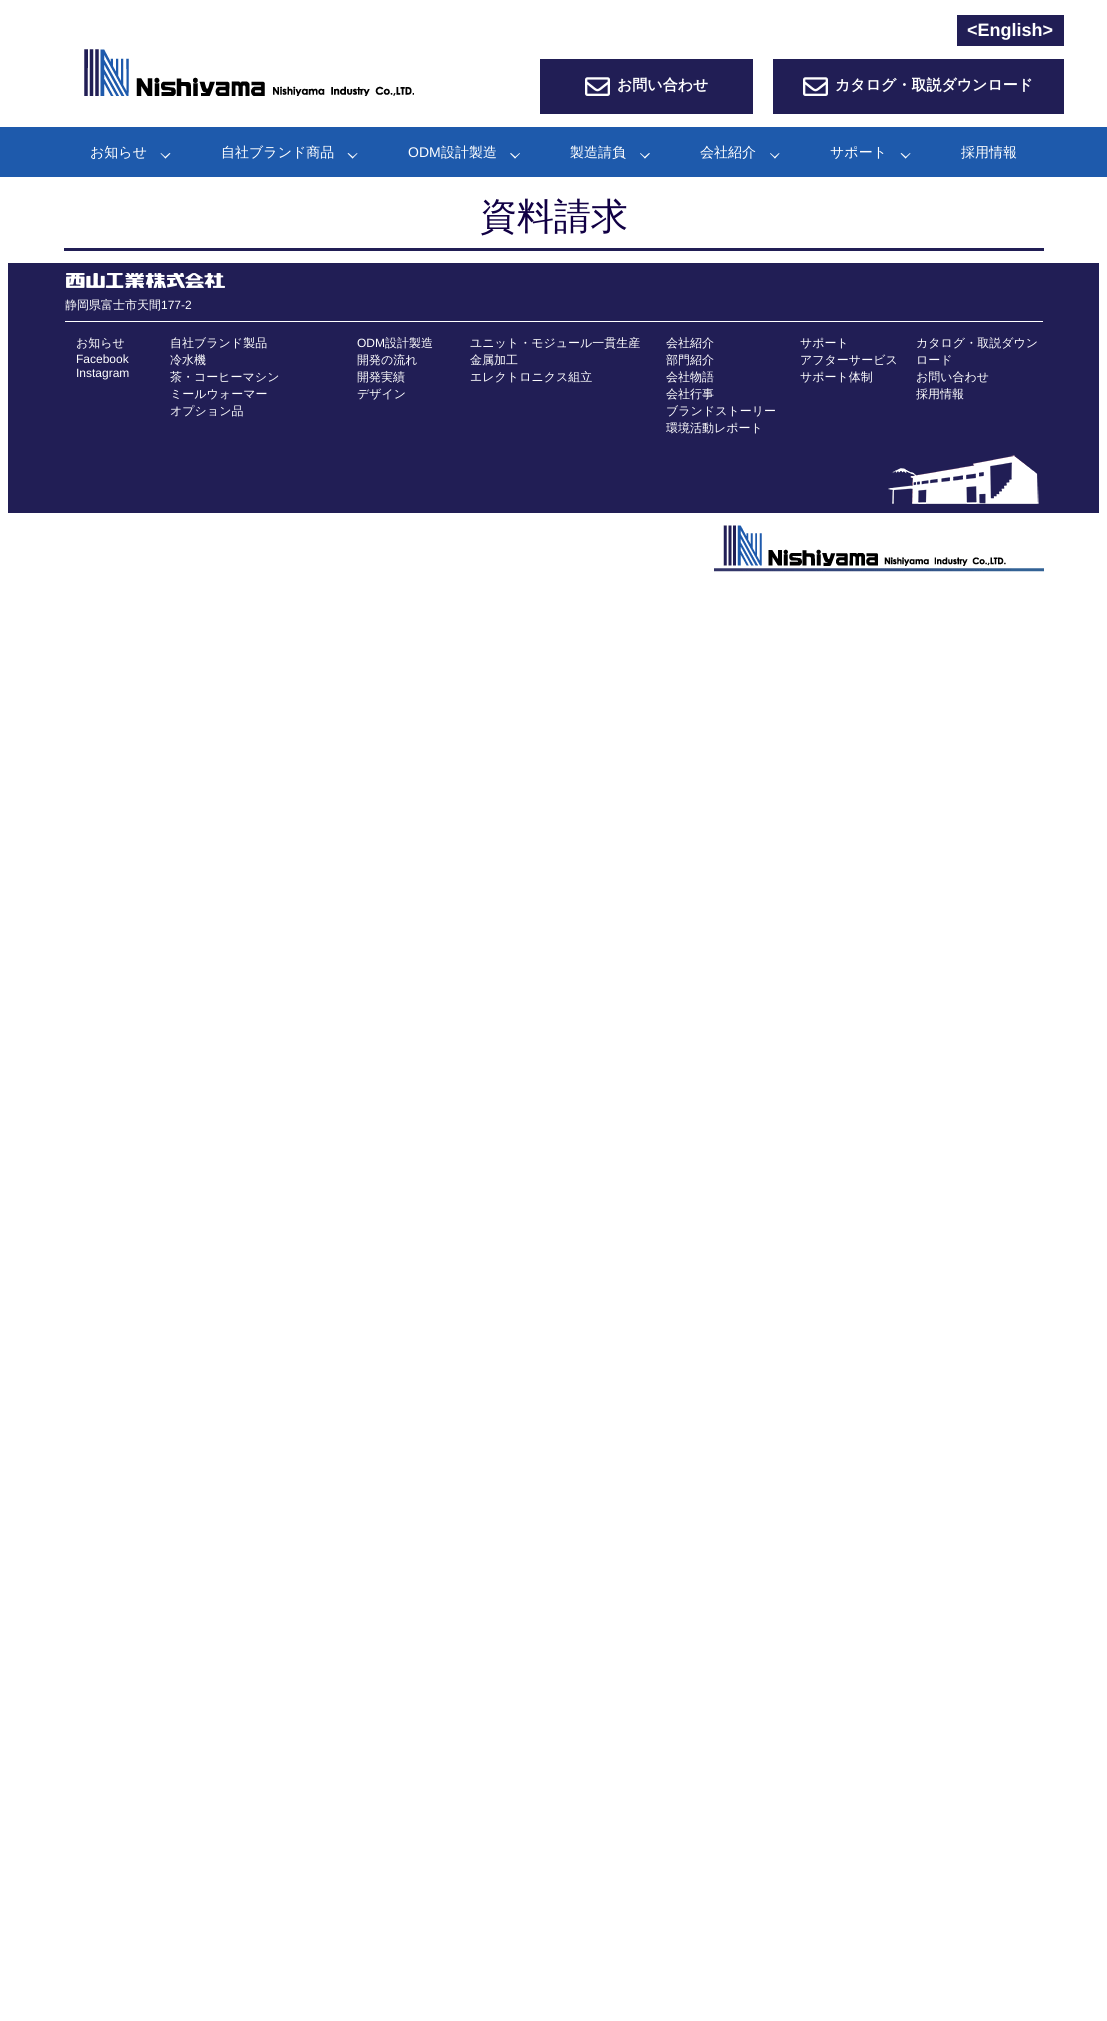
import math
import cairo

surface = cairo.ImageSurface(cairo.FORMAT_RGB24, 1107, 2021)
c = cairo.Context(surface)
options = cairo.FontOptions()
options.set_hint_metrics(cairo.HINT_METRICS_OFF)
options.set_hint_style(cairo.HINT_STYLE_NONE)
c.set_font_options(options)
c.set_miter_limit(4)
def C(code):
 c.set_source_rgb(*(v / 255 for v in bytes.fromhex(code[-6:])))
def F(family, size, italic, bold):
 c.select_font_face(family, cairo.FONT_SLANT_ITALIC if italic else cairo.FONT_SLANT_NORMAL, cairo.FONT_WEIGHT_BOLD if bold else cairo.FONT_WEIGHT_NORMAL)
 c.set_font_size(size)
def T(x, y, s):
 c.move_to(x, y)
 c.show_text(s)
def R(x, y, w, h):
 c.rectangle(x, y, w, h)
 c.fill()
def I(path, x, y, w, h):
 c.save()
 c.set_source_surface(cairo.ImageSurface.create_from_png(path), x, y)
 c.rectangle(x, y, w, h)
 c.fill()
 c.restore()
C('ffffff')
c.paint()
I('1.png',84,49,330,47)
C('211e55')
R(540,59,213,55)
I('2.png',585,77,25,19)
F('WenQuanYi Zen Hei',15,0,1)
C('ffffff')
T(617,90,'お問い合わせ')
C('211e55')
R(957,15,107,31)
F('Liberation Sans',18,0,1)
C('ffffff')
T(967,36,'<English>')
C('211e55')
R(773,59,291,55)
I('2.png',803,77,25,19)
F('WenQuanYi Zen Hei',15,0,1)
C('ffffff')
T(835,90,'カタログ・取説ダウンロード')
C('1e5aac')
R(0,127,1107,50)
F('WenQuanYi Zen Hei Medium',14,0,0)
C('ffffff')
T(90,157,'お知らせ')
c.new_path()
c.move_to(169.5,153)
c.line_to(170.5,153.5)
c.line_to(165.5,158.5)
c.line_to(164.5,157.5)
c.close_path()
c.fill()
c.new_path()
c.move_to(161,153)
c.line_to(166,157.5)
c.line_to(165.5,158.5)
c.line_to(160.5,153.5)
c.close_path()
c.fill()
T(221,157,'自社ブランド商品')
c.new_path()
c.move_to(357,153)
c.line_to(357.5,153.5)
c.line_to(352.5,158.5)
c.line_to(352,157.5)
c.close_path()
c.fill()
c.new_path()
c.move_to(348.5,153)
c.line_to(353.5,157.5)
c.line_to(352.5,158.5)
c.line_to(347.5,153.5)
c.close_path()
c.fill()
F('Liberation Sans',14,0,0)
T(408,157,'ODM')
F('WenQuanYi Zen Hei Medium',14,0,0)
T(441,157,'設計製造')
c.new_path()
c.move_to(519.5,153)
c.line_to(520,153.5)
c.line_to(515,158.5)
c.line_to(514.5,157.5)
c.close_path()
c.fill()
c.new_path()
c.move_to(511,153)
c.line_to(516,157.5)
c.line_to(515,158.5)
c.line_to(510,153.5)
c.close_path()
c.fill()
T(570,157,'製造請負')
c.new_path()
c.move_to(649,153)
c.line_to(650,153.5)
c.line_to(645,158.5)
c.line_to(644,157.5)
c.close_path()
c.fill()
c.new_path()
c.move_to(640.5,153)
c.line_to(645.5,157.5)
c.line_to(645,158.5)
c.line_to(640,153.5)
c.close_path()
c.fill()
T(700,157,'会社紹介')
c.new_path()
c.move_to(779,153)
c.line_to(779.5,153.5)
c.line_to(775,158.5)
c.line_to(774,157.5)
c.close_path()
c.fill()
c.new_path()
c.move_to(770.5,153)
c.line_to(775.5,157.5)
c.line_to(775,158.5)
c.line_to(770,153.5)
c.close_path()
c.fill()
T(830,157,'サポート')
c.new_path()
c.move_to(910,153)
c.line_to(910.5,153.5)
c.line_to(905.5,158.5)
c.line_to(905,157.5)
c.close_path()
c.fill()
c.new_path()
c.move_to(901.5,153)
c.line_to(906.5,157.5)
c.line_to(905.5,158.5)
c.line_to(900.5,153.5)
c.close_path()
c.fill()
T(961,157,'採用情報')
F('WenQuanYi Zen Hei Medium',37,0,0)
C('110044')
T(480,229,'資料請求')
C('211e55')
R(64,248,980,3)
R(8,263,1091,250)
I('3.png',66,273,159,15)
F('WenQuanYi Zen Hei Medium',12,0,0)
C('ffffff')
T(65,309,'静岡県富士市天間')
F('Liberation Sans',12,0,0)
T(161,309,'177-2')
R(65,321,978,1)
F('WenQuanYi Zen Hei Medium',12,0,0)
T(76,347,'お知らせ')
F('Liberation Sans',12,0,0)
T(76,363,'Facebook')
T(76,377,'Instagram')
F('WenQuanYi Zen Hei Medium',12,0,0)
T(170,347,'自社ブランド製品')
T(170,364,'冷水機')
T(170,381,'茶・コーヒーマシン')
T(170,398,'ミールウォーマー')
T(170,415,'オプション品')
F('Liberation Sans',12,0,0)
T(357,347,'ODM')
F('WenQuanYi Zen Hei Medium',12,0,0)
T(385,347,'設計製造')
T(357,364,'開発の流れ')
T(357,381,'開発実績')
T(357,398,'デザイン')
T(470,347,'ユニット・モジュール一貫生産')
T(470,364,'金属加工')
T(470,381,'エレクトロニクス組立')
T(666,347,'会社紹介')
T(666,364,'部門紹介')
T(666,381,'会社物語')
T(666,398,'会社行事')
T(666,415,'ブランドストーリー')
T(666,432,'環境活動レポート')
T(800,347,'サポート')
T(800,364,'アフターサービス')
T(800,381,'サポート体制')
T(916,347,'カタログ・取説ダウン')
T(916,364,'ロード')
T(916,381,'お問い合わせ')
T(916,398,'採用情報')
I('4.png',888,455,151,49)
I('5.png',714,525,330,47)
surface.write_to_png('o.png')
